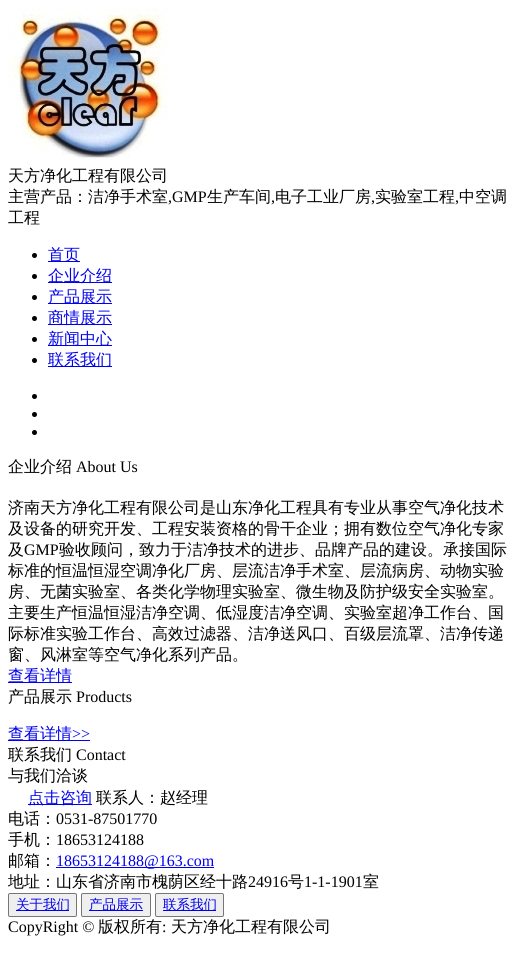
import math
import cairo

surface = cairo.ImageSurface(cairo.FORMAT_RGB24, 523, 960)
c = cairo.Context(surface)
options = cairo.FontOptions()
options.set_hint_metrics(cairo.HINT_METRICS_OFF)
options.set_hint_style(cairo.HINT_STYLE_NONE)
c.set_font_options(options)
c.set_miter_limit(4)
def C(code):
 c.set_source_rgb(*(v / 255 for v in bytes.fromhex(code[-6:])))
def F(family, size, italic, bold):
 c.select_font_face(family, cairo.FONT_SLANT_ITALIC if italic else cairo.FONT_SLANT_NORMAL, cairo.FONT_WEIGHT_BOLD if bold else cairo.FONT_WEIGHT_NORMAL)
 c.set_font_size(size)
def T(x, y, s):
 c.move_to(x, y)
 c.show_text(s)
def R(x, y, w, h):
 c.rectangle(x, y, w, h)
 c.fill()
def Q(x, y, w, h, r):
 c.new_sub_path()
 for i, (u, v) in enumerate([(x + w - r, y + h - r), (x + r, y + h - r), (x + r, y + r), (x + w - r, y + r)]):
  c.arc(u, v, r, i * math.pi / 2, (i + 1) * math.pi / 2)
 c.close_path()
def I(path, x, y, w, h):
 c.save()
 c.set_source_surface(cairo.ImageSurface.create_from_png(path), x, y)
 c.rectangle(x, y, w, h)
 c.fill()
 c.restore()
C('ffffff')
c.paint()
I('1.png',8,8,160,154)
F('WenQuanYi Zen Hei Medium',16,0,0)
C('000000')
T(8,181,'天方净化工程有限公司')
T(8,202,'主营产品：洁净手术室')
F('Liberation Serif',16,0,0)
T(168,202,',GMP')
F('WenQuanYi Zen Hei Medium',16,0,0)
T(207,202,'生产车间')
F('Liberation Serif',16,0,0)
T(271,202,',')
F('WenQuanYi Zen Hei Medium',16,0,0)
T(275,202,'电子工业厂房')
F('Liberation Serif',16,0,0)
T(371,202,',')
F('WenQuanYi Zen Hei Medium',16,0,0)
T(375,202,'实验室工程')
F('Liberation Serif',16,0,0)
T(455,202,',')
F('WenQuanYi Zen Hei Medium',16,0,0)
T(459,202,'中空调')
T(8,223,'工程')
c.new_path()
c.arc(34.5,255.5,2.5,0,2 * math.pi)
c.fill()
C('0000ee')
R(48,261,32,1)
T(48,260,'首页')
C('000000')
c.new_path()
c.arc(34.5,276.5,2.5,0,2 * math.pi)
c.fill()
C('0000ee')
R(48,282,64,1)
T(48,281,'企业介绍')
C('000000')
c.new_path()
c.arc(34.5,297.5,2.5,0,2 * math.pi)
c.fill()
C('0000ee')
R(48,303,64,1)
T(48,302,'产品展示')
C('000000')
c.new_path()
c.arc(34.5,318.5,2.5,0,2 * math.pi)
c.fill()
C('0000ee')
R(48,324,64,1)
T(48,323,'商情展示')
C('000000')
c.new_path()
c.arc(34.5,339.5,2.5,0,2 * math.pi)
c.fill()
C('0000ee')
R(48,345,64,1)
T(48,344,'新闻中心')
C('000000')
c.new_path()
c.arc(34.5,360.5,2.5,0,2 * math.pi)
c.fill()
C('0000ee')
R(48,366,64,1)
T(48,365,'联系我们')
C('000000')
c.new_path()
c.arc(34.5,396.5,2.5,0,2 * math.pi)
c.fill()
c.arc(34.5,414.5,2.5,0,2 * math.pi)
c.fill()
c.arc(34.5,432.5,2.5,0,2 * math.pi)
c.fill()
T(8,472,'企业介绍')
F('Liberation Serif',16,0,0)
T(76,472,'About Us')
F('WenQuanYi Zen Hei Medium',16,0,0)
T(8,513,'济南天方净化工程有限公司是山东净化工程具有专业从事空气净化技术')
T(8,534,'及设备的研究开发、工程安装资格的骨干企业；拥有数位空气净化专家')
T(8,555,'及')
F('Liberation Serif',16,0,0)
T(24,555,'GMP')
F('WenQuanYi Zen Hei Medium',16,0,0)
T(59,555,'验收顾问，致力于洁净技术的进步、品牌产品的建设。承接国际')
T(8,576,'标准的恒温恒湿空调净化厂房、层流洁净手术室、层流病房、动物实验')
T(8,597,'房、无菌实验室、各类化学物理实验室、微生物及防护级安全实验室。')
T(8,618,'主要生产恒温恒湿洁净空调、低湿度洁净空调、实验室超净工作台、国')
T(8,639,'际标准实验工作台、高效过滤器、洁净送风口、百级层流罩、洁净传递')
T(8,660,'窗、风淋室等空气净化系列产品。')
C('0000ee')
R(8,682,64,1)
T(8,681,'查看详情')
C('000000')
T(8,702,'产品展示')
F('Liberation Serif',16,0,0)
T(76,702,'Products')
C('0000ee')
R(8,740,82,1)
F('WenQuanYi Zen Hei Medium',16,0,0)
T(8,739,'查看详情')
F('Liberation Serif',16,0,0)
T(72,739,'>>')
F('WenQuanYi Zen Hei Medium',16,0,0)
C('000000')
T(8,760,'联系我们')
F('Liberation Serif',16,0,0)
T(76,760,'Contact')
F('WenQuanYi Zen Hei Medium',16,0,0)
T(8,781,'与我们洽谈')
C('0000ee')
R(28,804,64,1)
T(28,803,'点击咨询')
C('000000')
T(96,803,'联系人：赵经理')
T(8,824,'电话：')
F('Liberation Serif',16,0,0)
T(56,824,'0531-87501770')
F('WenQuanYi Zen Hei Medium',16,0,0)
T(8,845,'手机：')
F('Liberation Serif',16,0,0)
T(56,845,'18653124188')
F('WenQuanYi Zen Hei Medium',16,0,0)
T(8,866,'邮箱：')
C('0000ee')
R(56,867,158,1)
F('Liberation Serif',16,0,0)
T(56,866,'18653124188@163.com')
F('WenQuanYi Zen Hei Medium',16,0,0)
C('000000')
T(8,887,'地址：山东省济南市槐荫区经十路')
F('Liberation Serif',16,0,0)
T(248,887,'24916')
F('WenQuanYi Zen Hei Medium',16,0,0)
T(288,887,'号')
F('Liberation Serif',16,0,0)
T(304,887,'1-1-1901')
F('WenQuanYi Zen Hei Medium',16,0,0)
T(363,887,'室')
C('efefef')
Q(8.5,893.5,68,23,1.5)
c.fill_preserve()
C('767676')
c.set_line_width(1)
c.stroke()
C('0000ee')
R(16,910,53,1)
F('WenQuanYi Zen Hei Medium',13.5,0,0)
T(16,909,'关于我们')
C('efefef')
Q(81.5,893.5,69,23,1.5)
c.fill_preserve()
C('767676')
c.stroke()
C('0000ee')
R(89,910,54,1)
T(89,909,'产品展示')
C('efefef')
Q(155.5,893.5,68,23,1.5)
c.fill_preserve()
C('767676')
c.stroke()
C('0000ee')
R(163,910,53,1)
T(163,909,'联系我们')
F('Liberation Serif',16,0,0)
C('000000')
T(8,932,'CopyRight ©')
F('WenQuanYi Zen Hei Medium',16,0,0)
T(98,932,'版权所有')
F('Liberation Serif',16,0,0)
T(162,932,':')
F('WenQuanYi Zen Hei Medium',16,0,0)
T(171,932,'天方净化工程有限公司')
surface.write_to_png('o.png')
